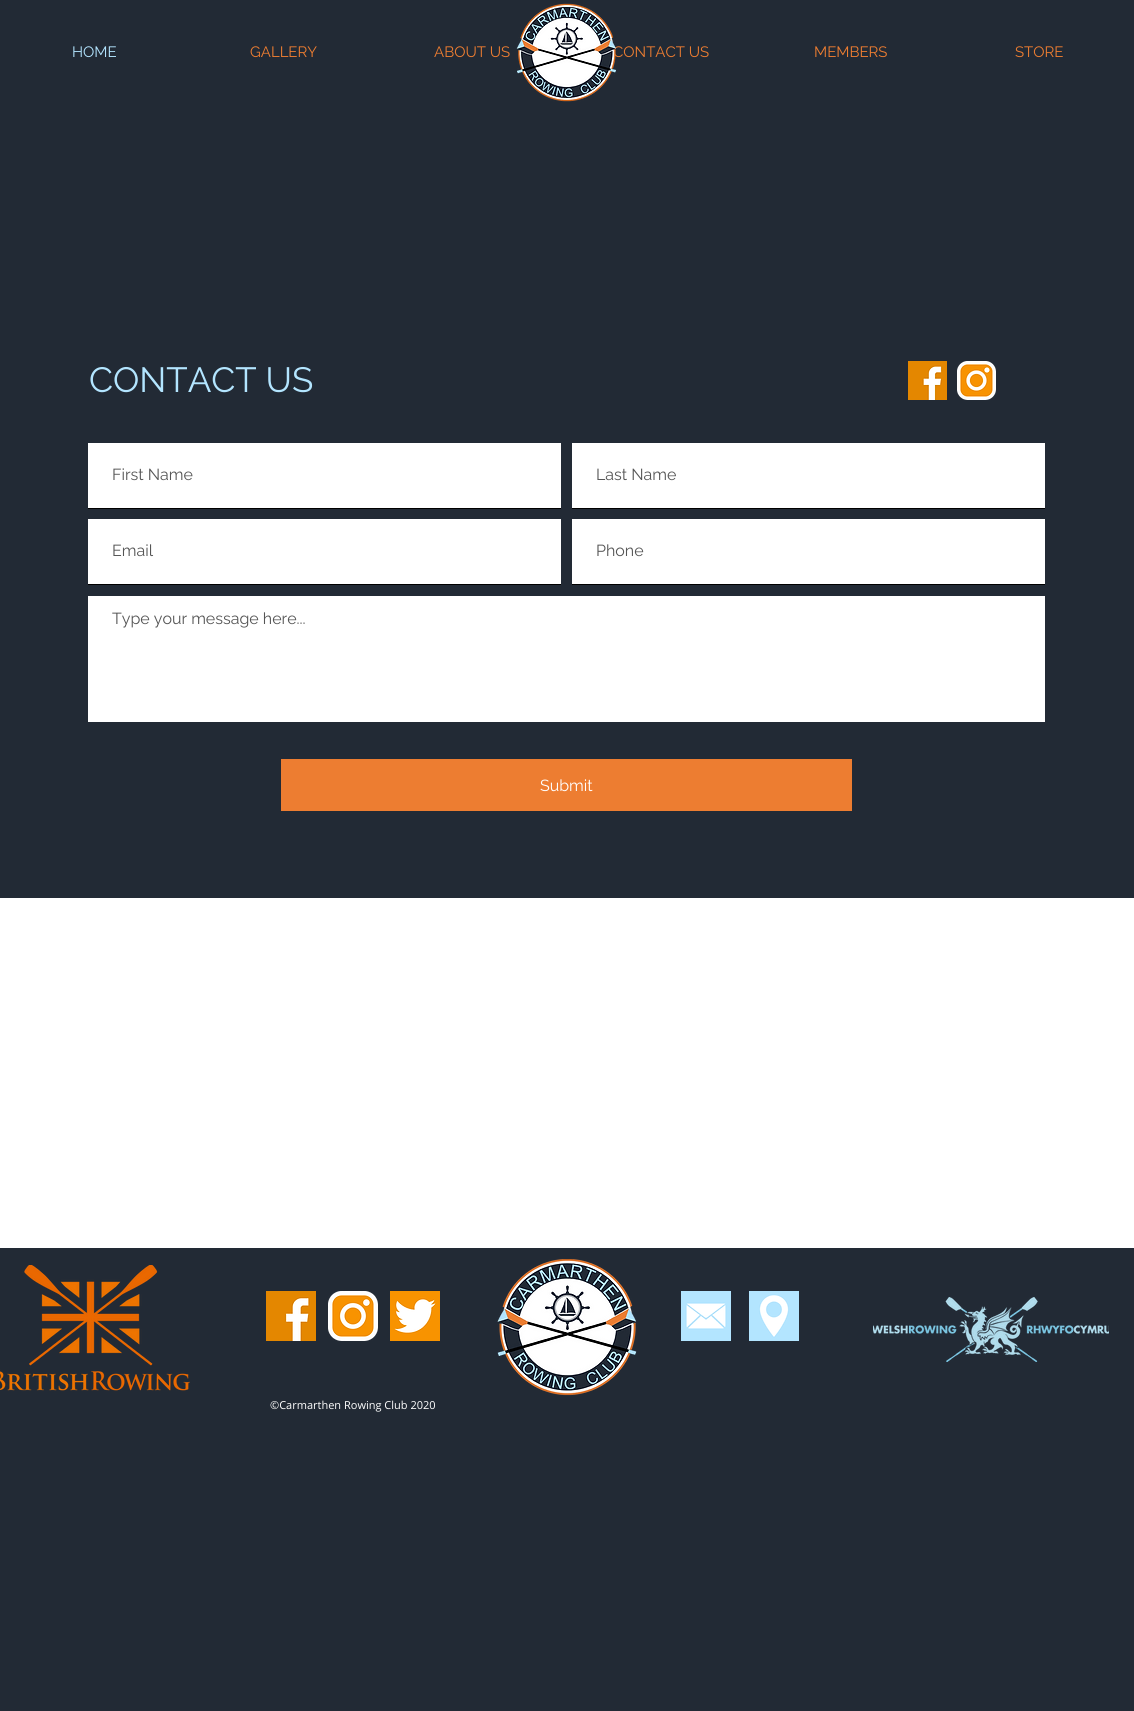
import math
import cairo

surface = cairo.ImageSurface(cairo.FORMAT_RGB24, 1134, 1711)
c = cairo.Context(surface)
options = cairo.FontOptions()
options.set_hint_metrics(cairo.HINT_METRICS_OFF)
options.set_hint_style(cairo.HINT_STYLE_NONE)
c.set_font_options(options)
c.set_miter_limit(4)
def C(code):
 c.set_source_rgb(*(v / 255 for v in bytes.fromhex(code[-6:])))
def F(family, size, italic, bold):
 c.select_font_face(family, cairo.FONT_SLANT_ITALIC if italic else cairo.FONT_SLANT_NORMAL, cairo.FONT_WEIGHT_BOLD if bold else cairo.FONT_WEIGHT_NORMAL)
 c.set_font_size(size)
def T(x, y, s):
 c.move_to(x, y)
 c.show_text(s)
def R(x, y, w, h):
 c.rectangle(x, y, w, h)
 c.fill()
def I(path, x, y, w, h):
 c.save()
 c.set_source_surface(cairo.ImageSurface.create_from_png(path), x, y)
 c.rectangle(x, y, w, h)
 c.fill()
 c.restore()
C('222a35')
c.paint()
F('Raleway',15,0,0)
C('ed7d31')
T(613,57,'CONTACT US')
I('1.png',516,3,100,99)
C('b3e5ff')
T(72,57,'HOME')
C('ed7d31')
T(250,57,'GALLERY')
T(434,57,'ABOUT US')
T(814,57,'MEMBERS')
T(1015,57,'STORE')
F('Raleway',35,0,0)
C('b3e5ff')
T(89,392,'CONTACT US')
I('2.png',908,361,39,39)
I('3.png',957,361,39,39)
C('ffffff')
R(88,443,473,65)
C('000000')
R(88,508,473,1)
F('Raleway',16,0,0)
C('555555')
T(112,480,'First Name')
C('ffffff')
R(572,443,473,65)
C('000000')
R(572,508,473,1)
C('555555')
T(596,480,'Last Name')
C('ffffff')
R(88,519,473,65)
C('000000')
R(88,584,473,1)
C('555555')
T(112,556,'Email')
C('ffffff')
R(572,519,473,65)
C('000000')
R(572,584,473,1)
C('555555')
T(596,556,'Phone')
C('ffffff')
R(88,596,957,126)
C('555555')
T(112,624,'Type your message here...')
C('ed7d31')
R(281,759,571,52)
C('ffffff')
T(540,791,'Submit')
R(0,898,1134,350)
I('4.png',0,1265,190,126)
I('5.png',497,1259,140,137)
I('6.png',681,1291,50,50)
I('7.png',749,1291,50,50)
I('8.png',873,1297,236,65)
I('9.png',266,1291,50,50)
I('10.png',328,1291,50,50)
I('11.png',390,1291,50,50)
F('Open Sans',11,0,0)
T(270,1409,'©Carmarthen Rowing Club 2020')
surface.write_to_png('o.png')
